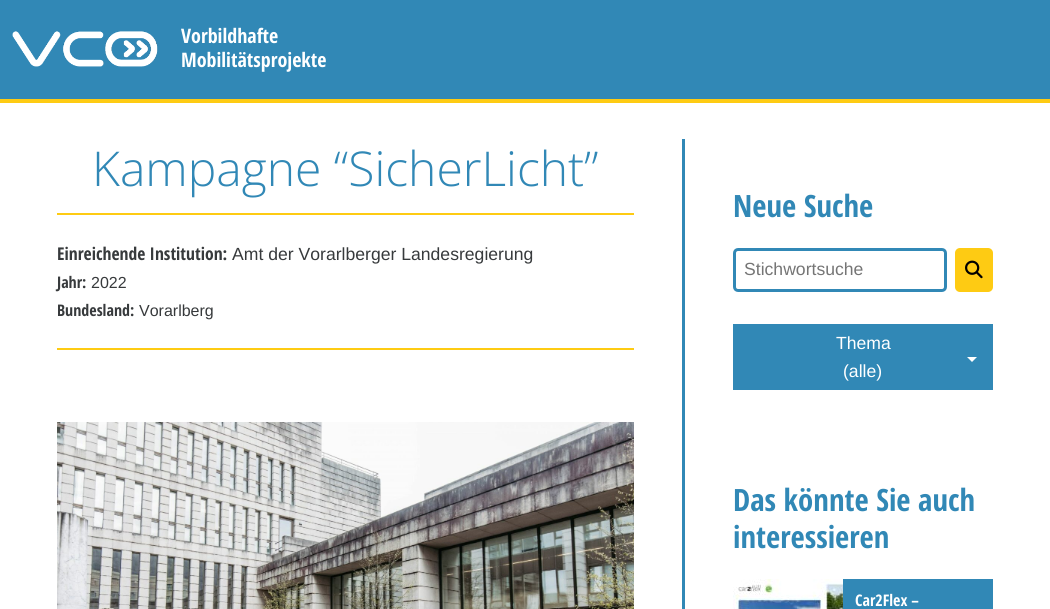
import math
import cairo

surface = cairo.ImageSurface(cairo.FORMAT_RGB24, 1050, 609)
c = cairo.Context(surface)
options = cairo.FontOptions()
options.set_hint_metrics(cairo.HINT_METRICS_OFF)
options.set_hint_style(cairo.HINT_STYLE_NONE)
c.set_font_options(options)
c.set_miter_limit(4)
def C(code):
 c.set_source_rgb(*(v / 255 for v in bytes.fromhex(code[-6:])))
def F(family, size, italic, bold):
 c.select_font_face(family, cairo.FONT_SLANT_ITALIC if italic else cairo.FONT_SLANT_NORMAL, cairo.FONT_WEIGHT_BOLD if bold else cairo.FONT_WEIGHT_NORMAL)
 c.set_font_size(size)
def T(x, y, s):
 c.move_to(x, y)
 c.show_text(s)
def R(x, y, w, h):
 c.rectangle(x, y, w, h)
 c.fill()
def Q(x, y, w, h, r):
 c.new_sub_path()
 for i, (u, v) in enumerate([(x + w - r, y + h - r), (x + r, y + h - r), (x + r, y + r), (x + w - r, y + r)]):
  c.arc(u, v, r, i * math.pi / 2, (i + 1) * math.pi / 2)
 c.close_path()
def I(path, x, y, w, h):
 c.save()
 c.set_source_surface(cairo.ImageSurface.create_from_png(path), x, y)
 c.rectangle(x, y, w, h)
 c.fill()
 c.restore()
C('ffffff')
c.paint()
C('3188b6')
R(0,0,1050,99)
C('fecb13')
R(0,99,1050,4)
I('1.png',12,31,146,36)
F('Open Sans Condensed',20,0,1)
C('ffffff')
T(181,43,'Vorbildhafte')
T(181,67,'Mobilitätsprojekte')
C('3188b6')
R(682,139,3,470)
C('fecb13')
R(57,213,577,2)
F('Open Sans Light',48,0,0)
C('3188b6')
T(92,186,'Kampagne “SicherLicht”')
F('Open Sans Condensed',17.6,0,1)
C('373a3c')
T(57,260,'Einreichende Institution:')
F('Arimo',17.6,0,0)
T(232,260,'Amt der Vorarlberger Landesregierung')
F('Open Sans Condensed',16,0,1)
T(57,288,'Jahr:')
F('Arimo',16,0,0)
T(91,288,'2022')
F('Open Sans Condensed',16,0,1)
T(57,316,'Bundesland:')
F('Arimo',16,0,0)
T(139,316,'Vorarlberg')
C('fecb13')
R(57,348,577,2)
I('2.png',57,422,577,187)
F('Open Sans Condensed',30.75,0,1)
C('3188b6')
T(733,217,'Neue Suche')
Q(734.5,249.5,211,41,3.5)
c.set_line_width(3)
c.stroke()
F('Arimo',17.6,0,0)
C('757575')
T(744,275,'Stichwortsuche')
C('fecb13')
Q(955,248,38,44,5)
c.fill()
I('3.png',965,260,18,19)
C('3188b6')
R(733,324,260,66)
C('ffffff')
T(836,349,'Thema')
c.new_path()
c.move_to(967,357)
c.line_to(977,357)
c.line_to(972,362)
c.close_path()
c.fill()
T(843,377,'(alle)')
F('Open Sans Condensed',30.75,0,1)
C('3188b6')
T(733,511,'Das könnte Sie auch')
T(733,548,'interessieren')
R(843,579,150,30)
I('4.png',733,579,110,30)
F('Open Sans Condensed',16,0,1)
C('ffffff')
T(855,606,'Car2Flex –')
surface.write_to_png('o.png')
